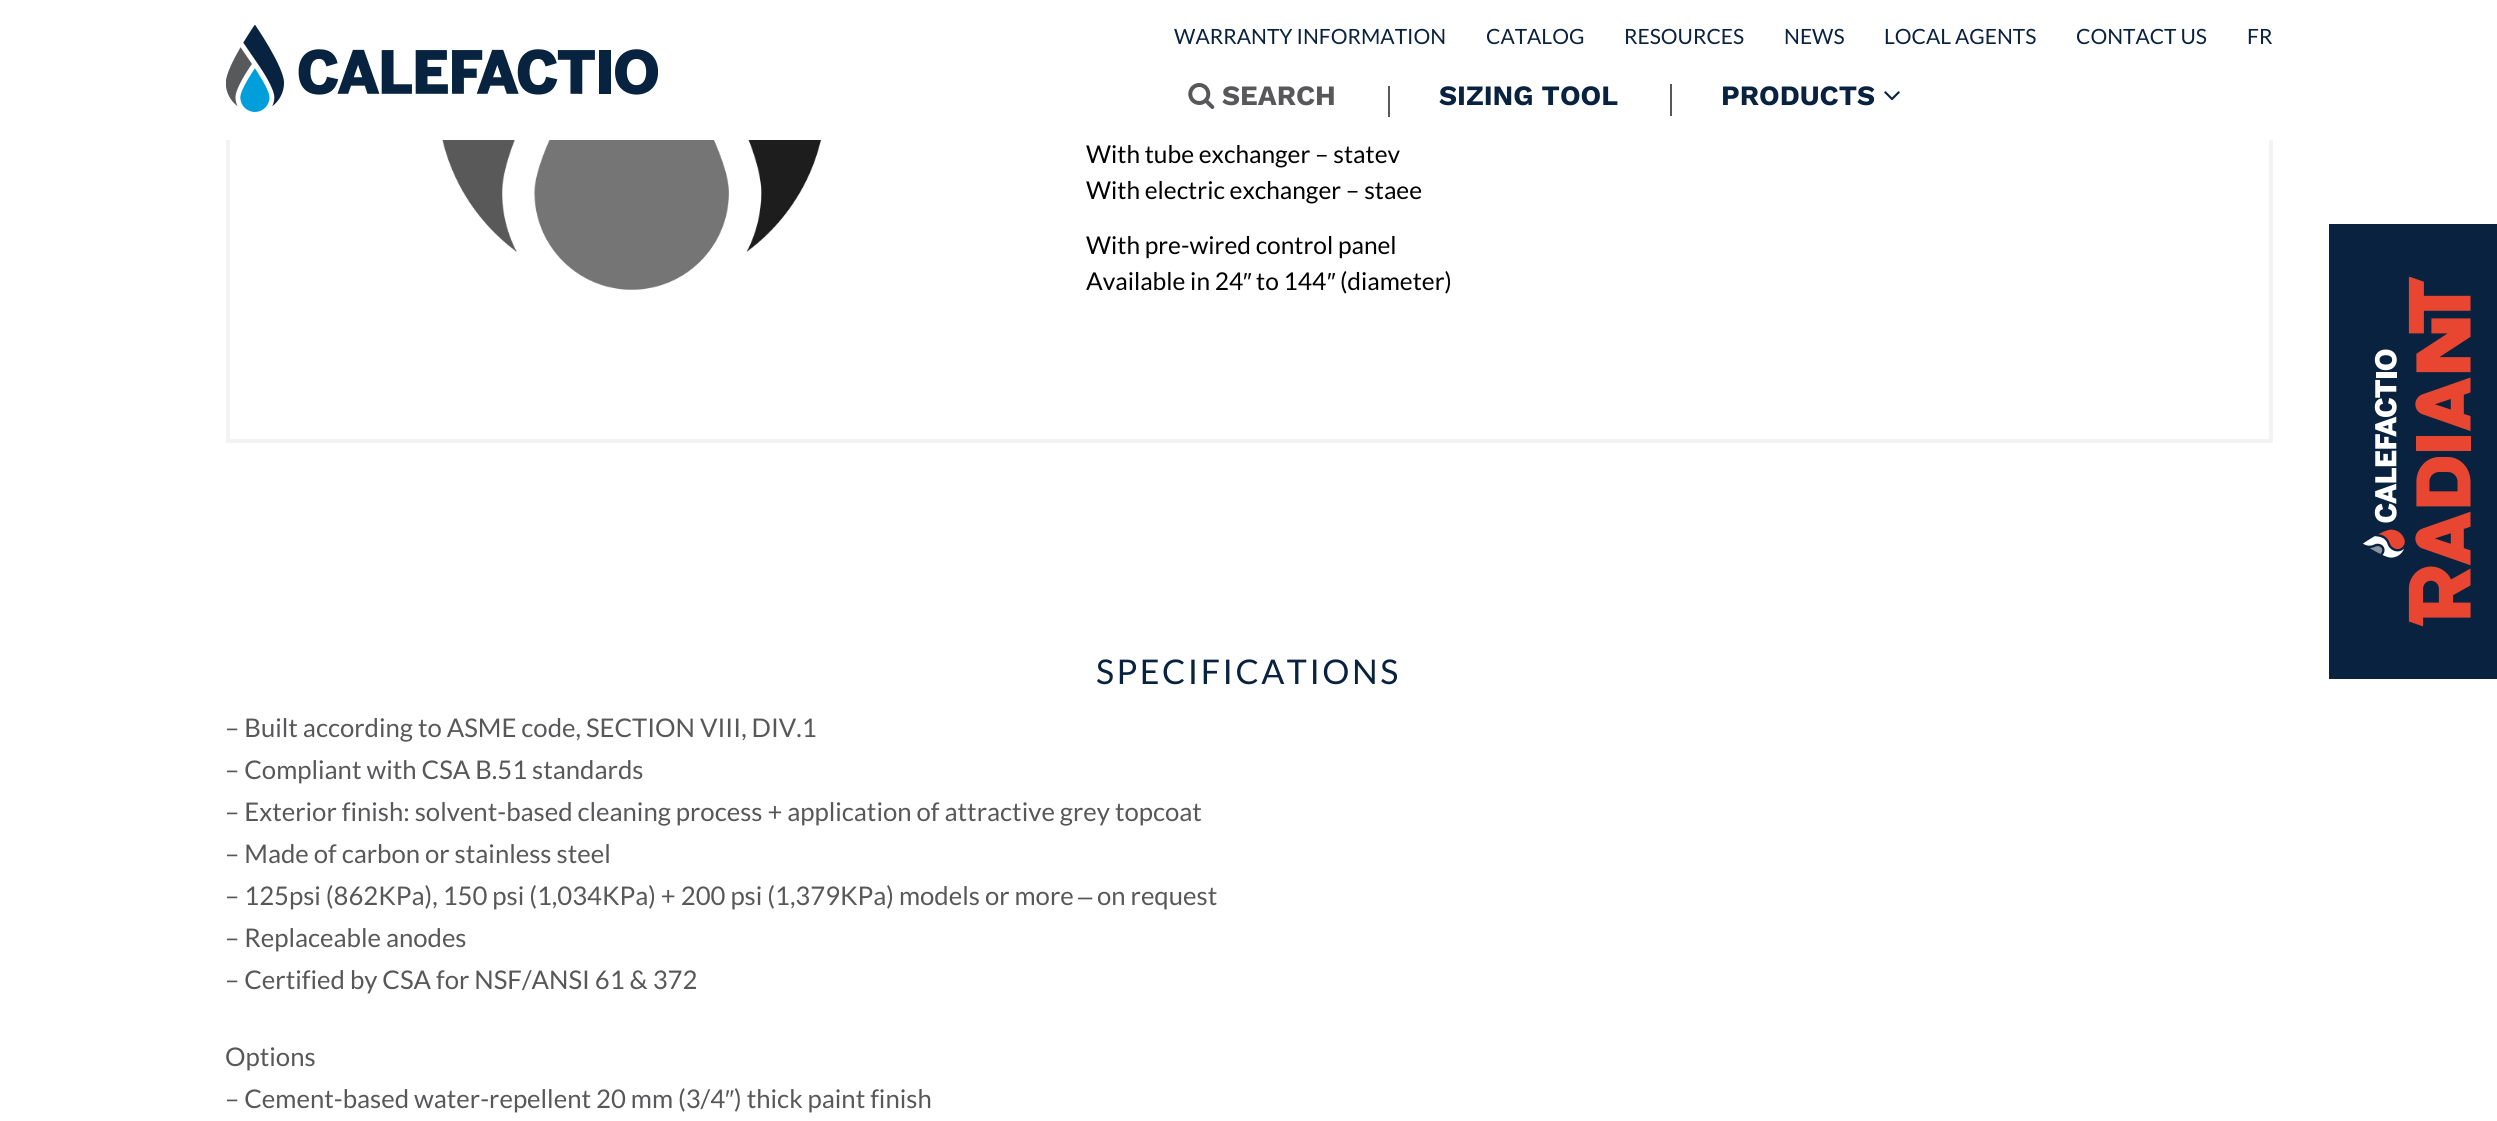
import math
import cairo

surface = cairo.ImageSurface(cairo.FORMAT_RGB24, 2497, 1121)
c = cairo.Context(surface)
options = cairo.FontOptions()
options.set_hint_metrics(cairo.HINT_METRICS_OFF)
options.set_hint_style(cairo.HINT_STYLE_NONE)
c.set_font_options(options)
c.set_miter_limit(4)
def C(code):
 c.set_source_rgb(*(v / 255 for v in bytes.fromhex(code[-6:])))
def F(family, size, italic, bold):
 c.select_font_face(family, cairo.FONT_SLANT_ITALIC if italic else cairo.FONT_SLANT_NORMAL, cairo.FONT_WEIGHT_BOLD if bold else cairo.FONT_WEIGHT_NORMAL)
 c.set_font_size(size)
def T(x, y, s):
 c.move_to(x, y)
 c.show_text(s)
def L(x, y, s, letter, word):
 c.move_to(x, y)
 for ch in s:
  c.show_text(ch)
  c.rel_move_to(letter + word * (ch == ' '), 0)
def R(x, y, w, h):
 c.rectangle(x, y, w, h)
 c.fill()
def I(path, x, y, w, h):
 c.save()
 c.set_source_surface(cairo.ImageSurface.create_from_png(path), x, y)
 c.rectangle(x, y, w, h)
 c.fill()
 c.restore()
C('ffffff')
c.paint()
c.rectangle(228,-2,2043,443)
C('f3f3f3')
c.set_line_width(4)
c.stroke()
C('ffffff')
R(226,0,2047,140)
I('1.png',226,25,432,87)
F('Lato',21,0,0)
C('092240')
T(1174,44,'WARRANTY INFORMATION')
T(1486,44,'CATALOG')
T(1624,44,'RESOURCES')
T(1784,44,'NEWS')
T(1884,44,'LOCAL AGENTS')
T(2076,44,'CONTACT US')
T(2247,44,'FR')
I('2.png',1188,83,27,26)
F('Work Sans',28,0,1)
C('58585a')
T(1222,105,'SEARCH')
R(1388,86,2,31)
C('092240')
T(1439,105,'SIZING TOOL')
C('58585a')
R(1670,84,2,32)
C('092240')
T(1721,105,'PRODUCTS')
I('3.png',1884,91,16,10)
I('4.png',442,140,380,150)
F('Lato',24.5,0,0)
C('000000')
T(1086,163,'With tube exchanger – statev')
T(1086,199,'With electric exchanger – staee')
T(1086,254,'With pre-wired control panel')
T(1086,290,'Available in 24')
F('Liberation Sans',24.5,0,0)
T(1243,290,'″')
F('Lato',24.5,0,0)
T(1256,290,'to 144')
F('Liberation Sans',24.5,0,0)
T(1327,290,'″')
F('Lato',24.5,0,0)
T(1340,290,'(diameter)')
F('Lato',34,0,0)
C('092240')
L(1096,684,'SPECIFICATIONS',2.5,0)
F('Lato',25.7,0,0)
C('58585a')
T(225,737,'– Built according to ASME code, SECTION VIII, DIV.1')
T(225,779,'– Compliant with CSA B.51 standards')
T(225,821,'– Exterior finish: solvent-based cleaning process + application of attractive grey topcoat')
T(225,863,'– Made of carbon or stainless steel')
T(225,905,'– 125psi (862KPa), 150 psi (1,034KPa) + 200 psi (1,379KPa) models or more')
F('Liberation Sans',25.7,0,0)
T(1078,905,'‒')
F('Lato',25.7,0,0)
T(1097,905,'on request')
T(225,947,'– Replaceable anodes')
T(225,989,'– Certified by CSA for NSF/ANSI 61 & 372')
T(225,1066,'Options')
T(225,1108,'– Cement-based water-repellent 20 mm (3/4')
F('Liberation Sans',25.7,0,0)
T(725,1108,'″')
F('Lato',25.7,0,0)
T(734,1108,') thick paint finish')
C('092240')
R(2329,224,168,455)
I('5.png',2363,276,108,351)
surface.write_to_png('o.png')
